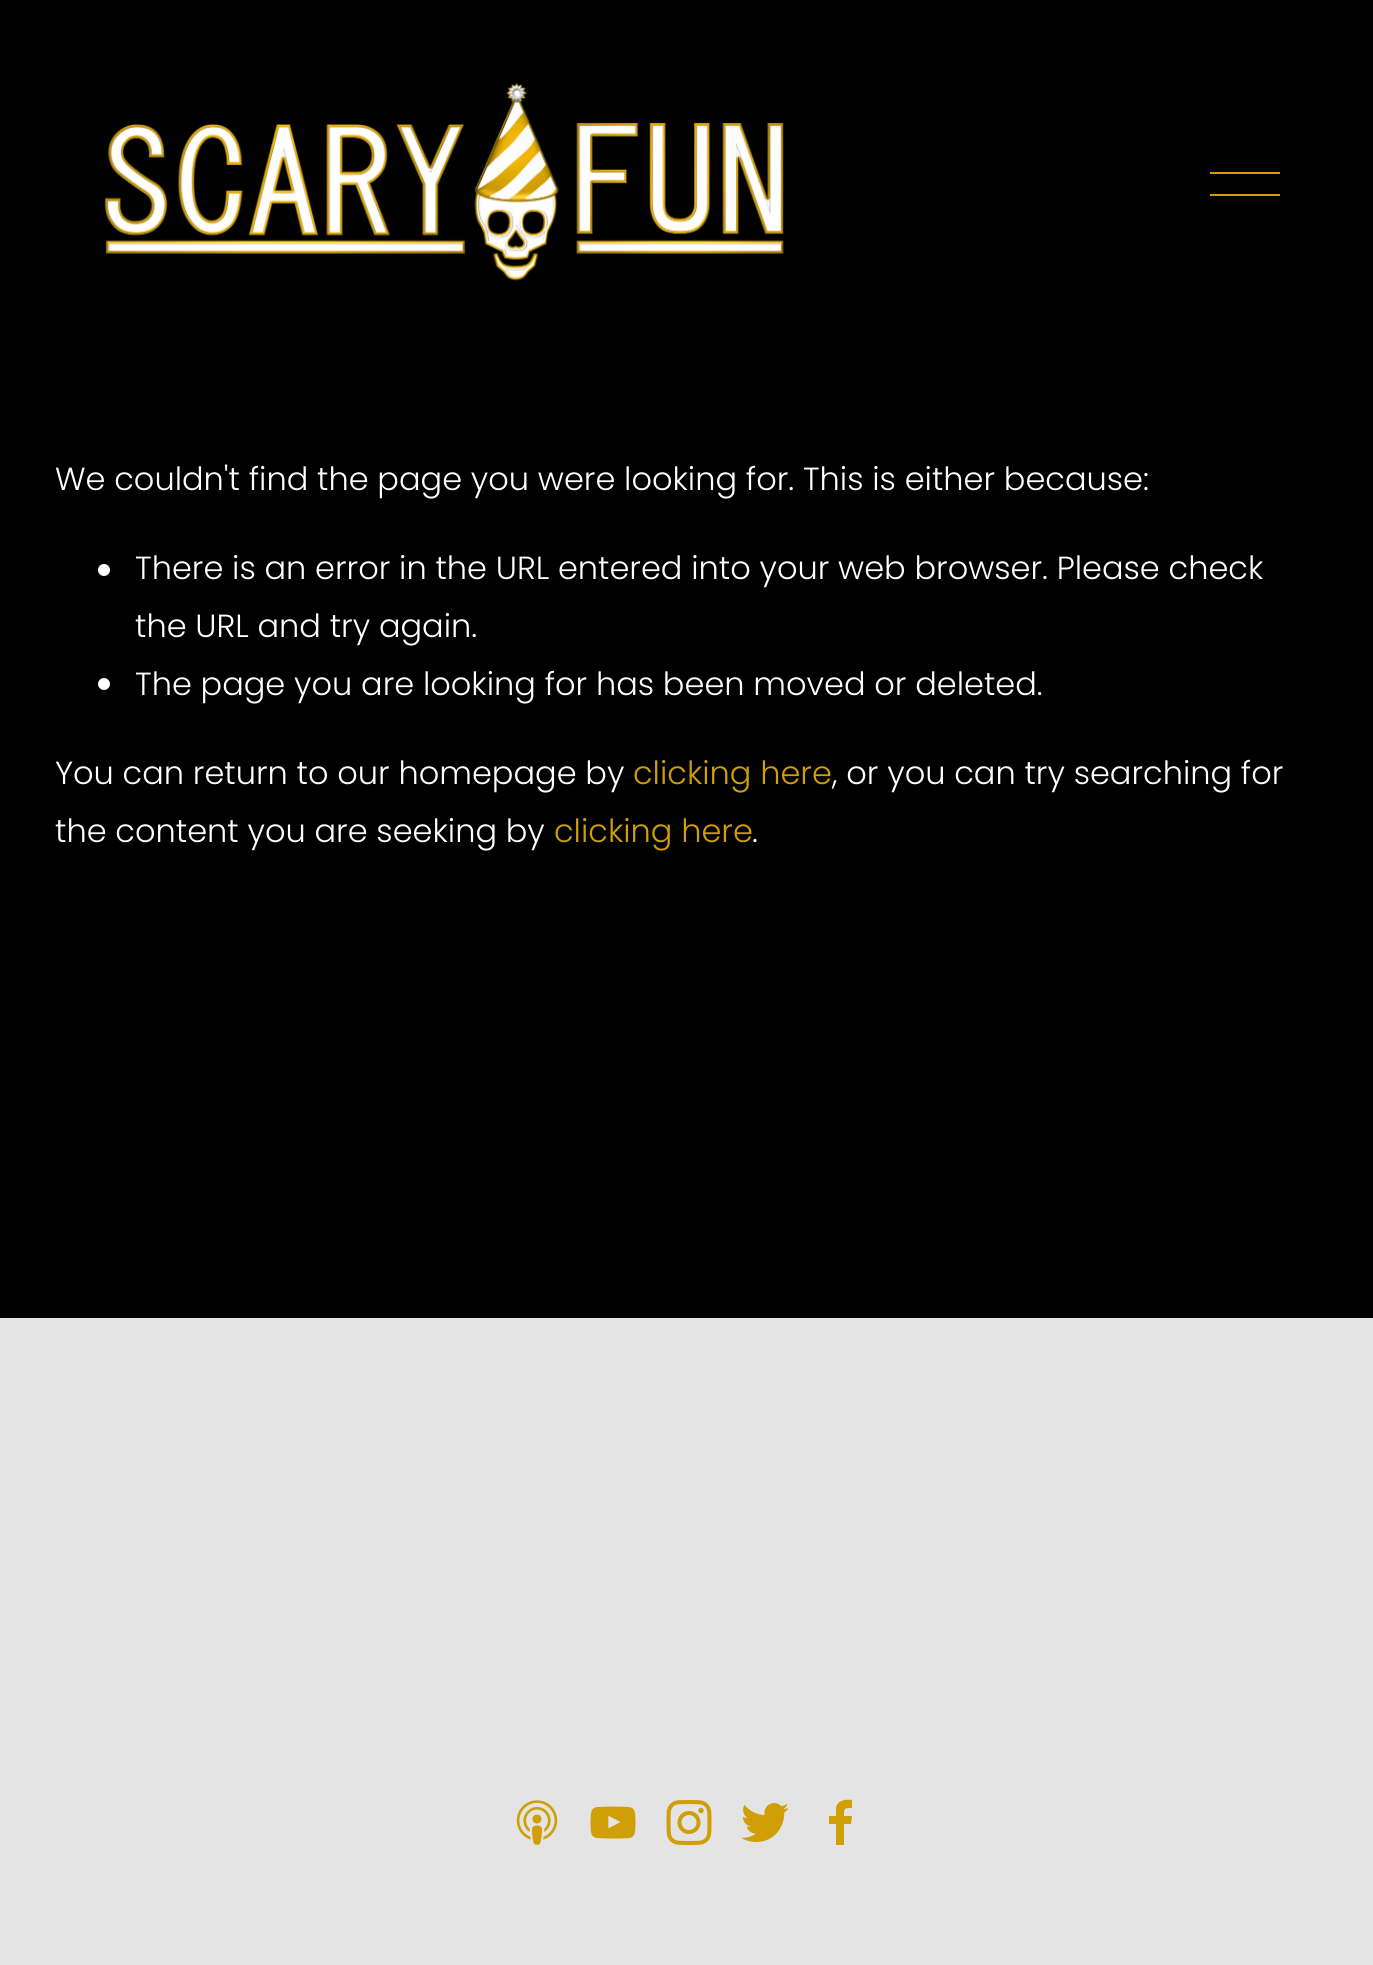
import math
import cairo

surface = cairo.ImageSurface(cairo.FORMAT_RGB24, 1373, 1965)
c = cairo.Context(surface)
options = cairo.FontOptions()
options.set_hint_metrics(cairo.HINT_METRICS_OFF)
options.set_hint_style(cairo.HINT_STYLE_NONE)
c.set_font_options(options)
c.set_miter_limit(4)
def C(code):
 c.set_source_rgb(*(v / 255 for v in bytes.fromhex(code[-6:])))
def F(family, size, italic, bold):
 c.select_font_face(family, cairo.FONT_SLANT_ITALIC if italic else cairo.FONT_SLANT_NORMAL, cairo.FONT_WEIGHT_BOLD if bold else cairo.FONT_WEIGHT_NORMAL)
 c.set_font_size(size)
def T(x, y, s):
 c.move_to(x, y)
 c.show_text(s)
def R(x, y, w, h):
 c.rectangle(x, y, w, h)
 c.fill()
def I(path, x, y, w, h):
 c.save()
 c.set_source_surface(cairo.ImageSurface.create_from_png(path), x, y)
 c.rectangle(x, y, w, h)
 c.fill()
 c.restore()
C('000000')
c.paint()
I('1.png',104,83,680,198)
C('d09e05')
R(1210,172,70,2)
R(1210,194,70,2)
F('Poppins Light',32,0,0)
C('ffffff')
T(55,490,'We couldn\'t find the page you were looking for. This is either because:')
c.new_path()
c.arc(104,570,6,0,2 * math.pi)
c.fill()
T(135,579,'There is an error in the URL entered into your web browser. Please check')
T(135,637,'the URL and try again.')
c.new_path()
c.arc(104,684,6,0,2 * math.pi)
c.fill()
T(135,695,'The page you are looking for has been moved or deleted.')
T(55,784,'You can return to our homepage by')
C('d09e05')
T(633,784,'clicking here')
C('ffffff')
T(832,784,', or you can try searching for')
T(55,842,'the content you are seeking by')
C('d09e05')
T(554,842,'clicking here')
C('ffffff')
T(752,842,'.')
C('e4e4e4')
R(0,1318,1373,647)
I('2.png',516,1800,42,45)
I('3.png',590,1806,46,33)
I('4.png',666,1800,46,45)
I('5.png',741,1803,47,39)
C('d09e05')
c.new_path()
c.move_to(844,1845)
c.line_to(844,1824)
c.line_to(851,1824)
c.line_to(852,1816)
c.line_to(844,1816)
c.curve_to(844,1808,844,1808,852,1808)
c.line_to(852,1800)
c.curve_to(846,1799,837,1800,836,1808)
c.line_to(836,1816)
c.line_to(829,1816)
c.line_to(829,1824)
c.line_to(836,1824)
c.line_to(836,1845)
c.close_path()
c.fill()
surface.write_to_png('o.png')
